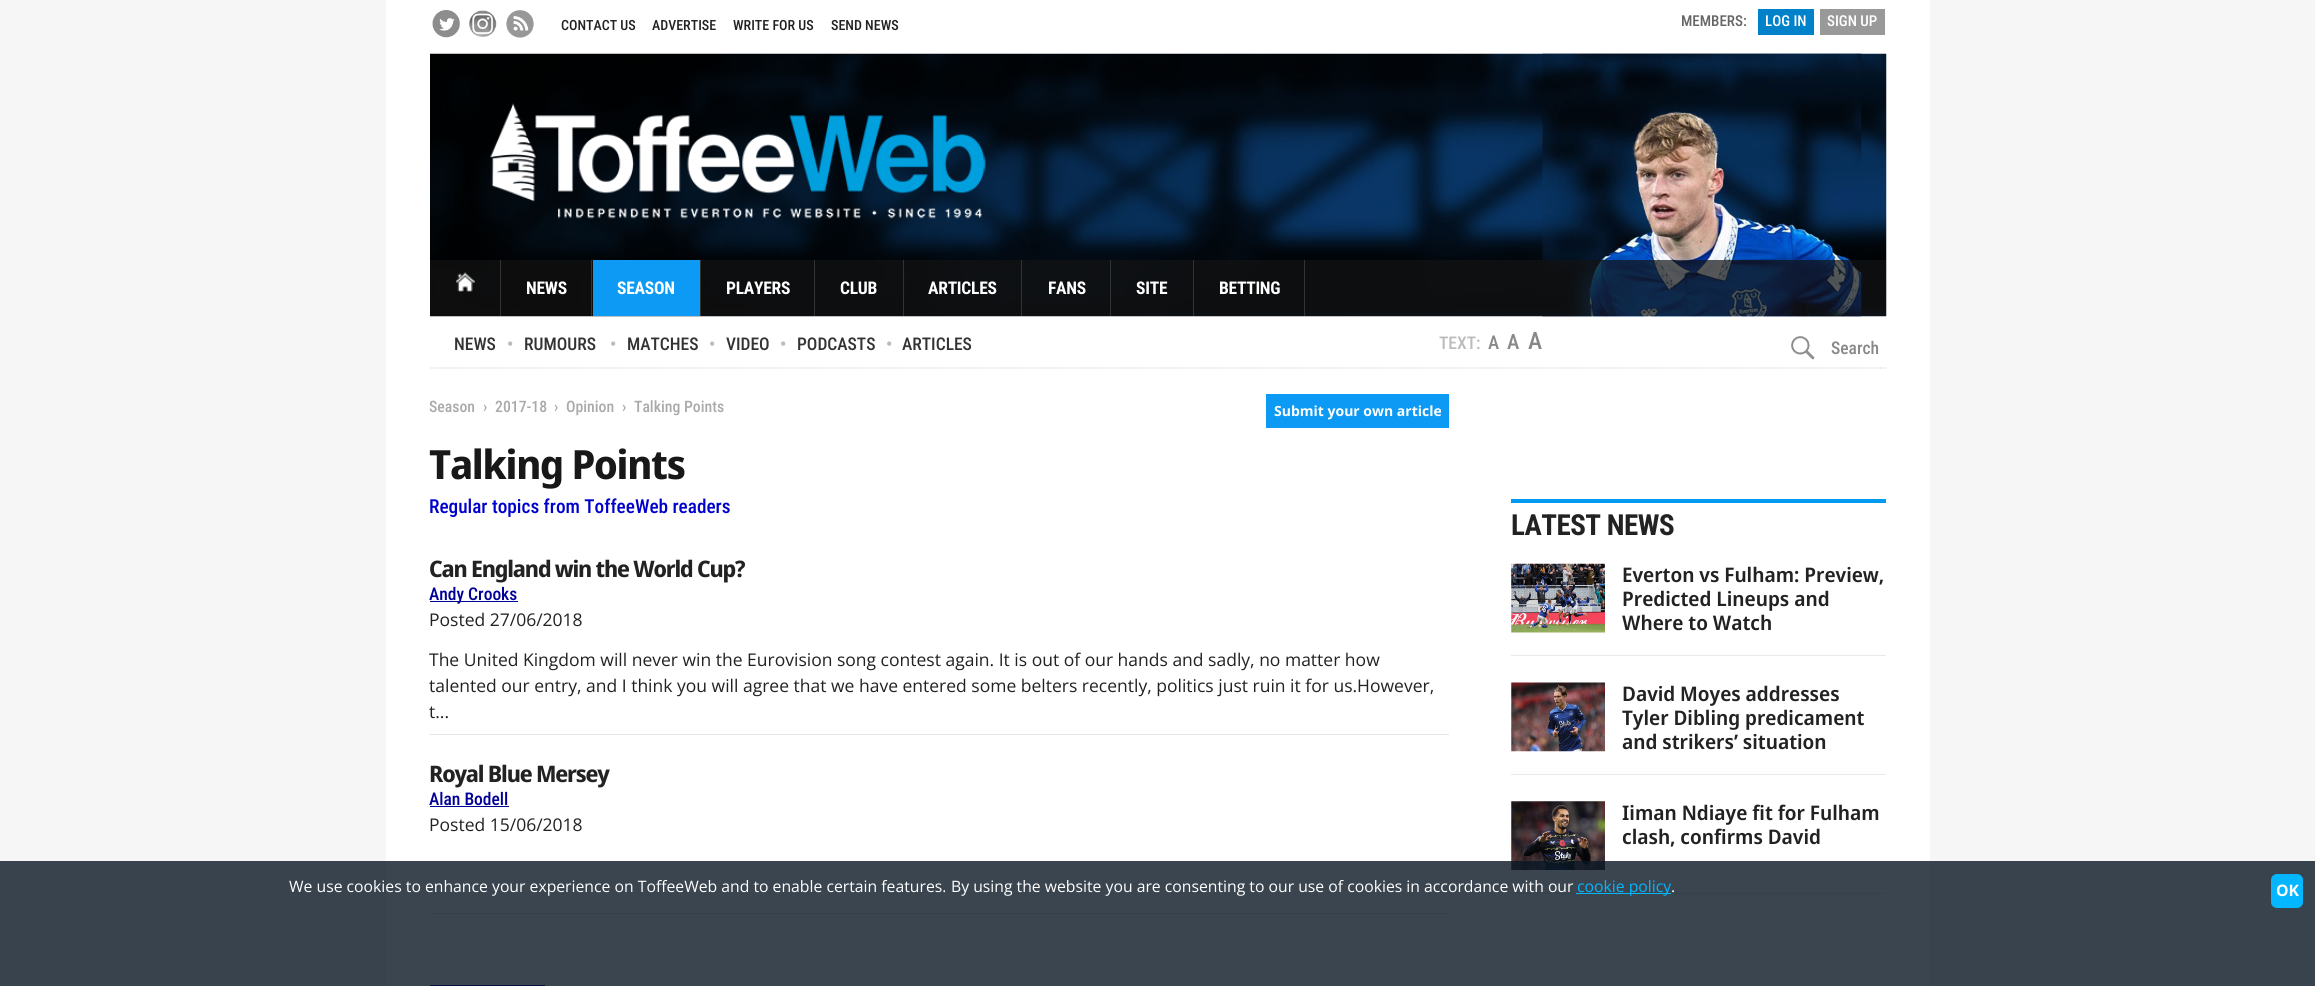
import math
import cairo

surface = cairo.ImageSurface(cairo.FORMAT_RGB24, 2315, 986)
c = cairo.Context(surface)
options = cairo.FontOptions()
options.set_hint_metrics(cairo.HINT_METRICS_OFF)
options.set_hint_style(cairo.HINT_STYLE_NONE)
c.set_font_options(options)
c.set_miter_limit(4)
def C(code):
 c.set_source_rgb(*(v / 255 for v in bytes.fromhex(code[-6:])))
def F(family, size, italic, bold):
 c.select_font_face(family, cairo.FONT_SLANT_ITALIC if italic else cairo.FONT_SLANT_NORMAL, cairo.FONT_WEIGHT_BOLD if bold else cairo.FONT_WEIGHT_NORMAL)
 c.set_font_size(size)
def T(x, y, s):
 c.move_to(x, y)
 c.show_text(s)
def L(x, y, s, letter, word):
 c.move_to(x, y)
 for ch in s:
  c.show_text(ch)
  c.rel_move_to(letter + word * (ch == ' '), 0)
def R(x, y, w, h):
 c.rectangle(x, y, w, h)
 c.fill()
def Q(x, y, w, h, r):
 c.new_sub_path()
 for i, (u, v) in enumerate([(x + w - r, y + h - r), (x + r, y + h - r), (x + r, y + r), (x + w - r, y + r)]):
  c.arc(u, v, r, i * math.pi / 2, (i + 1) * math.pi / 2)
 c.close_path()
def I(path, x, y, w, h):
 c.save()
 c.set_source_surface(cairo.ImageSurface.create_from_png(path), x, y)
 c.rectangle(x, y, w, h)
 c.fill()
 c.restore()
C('f6f6f6')
c.paint()
C('ffffff')
R(386,0,1544,986)
I('1.png',432,10,28,28)
I('2.png',469,10,28,27)
I('3.png',506,10,28,28)
F('Roboto Condensed Medium',14,0,0)
C('222222')
T(561,30,'CONTACT US')
T(652,30,'ADVERTISE')
T(733,30,'WRITE FOR US')
T(831,30,'SEND NEWS')
F('Roboto Condensed Medium',15,0,0)
C('666666')
T(1681,26,'MEMBERS:')
C('0082cb')
R(1758,9,56,26)
C('ffffff')
T(1765,26,'LOG IN')
C('999999')
R(1820,9,65,26)
C('ffffff')
T(1827,26,'SIGN UP')
I('4.png',430,53,1457,264)
I('5.png',490,103,496,116)
I('6.png',1542,53,320,264)
c.set_source_rgba(0.078,0.078,0.078,0.7)
R(430,260,1456,56)
C('333333')
R(500,260,1,56)
I('7.png',456,272,19,20)
R(591,260,1,56)
F('Roboto Condensed',17.5,0,1)
C('ffffff')
L(526,294,'NEWS',-.25,0)
C('0c9af5')
R(593,260,107,56)
C('333333')
R(700,260,1,56)
C('ffffff')
L(617,294,'SEASON',-.25,0)
C('333333')
R(814,260,1,56)
C('ffffff')
L(726,294,'PLAYERS',-.25,0)
C('333333')
R(903,260,1,56)
C('ffffff')
L(840,294,'CLUB',-.25,0)
C('333333')
R(1021,260,1,56)
C('ffffff')
L(928,294,'ARTICLES',-.25,0)
C('333333')
R(1110,260,1,56)
C('ffffff')
L(1048,294,'FANS',-.25,0)
C('333333')
R(1193,260,1,56)
C('ffffff')
L(1136,294,'SITE',-.25,0)
C('333333')
R(1304,260,1,56)
C('ffffff')
L(1219,294,'BETTING',-.25,0)
F('Roboto Condensed Medium',17.5,0,0)
C('333333')
T(454,350,'NEWS')
F('Roboto Condensed',17.5,0,1)
C('bbbbbb')
T(507,350,'•')
F('Roboto Condensed Medium',17.5,0,0)
C('333333')
T(524,350,'RUMOURS')
F('Roboto Condensed',17.5,0,1)
C('bbbbbb')
T(610,350,'•')
F('Roboto Condensed Medium',17.5,0,0)
C('333333')
T(627,350,'MATCHES')
F('Roboto Condensed',17.5,0,1)
C('bbbbbb')
T(709,350,'•')
F('Roboto Condensed Medium',17.5,0,0)
C('333333')
T(726,350,'VIDEO')
F('Roboto Condensed',17.5,0,1)
C('bbbbbb')
T(780,350,'•')
F('Roboto Condensed Medium',17.5,0,0)
C('333333')
T(797,350,'PODCASTS')
F('Roboto Condensed',17.5,0,1)
C('bbbbbb')
T(886,350,'•')
F('Roboto Condensed Medium',17.5,0,0)
C('333333')
T(902,350,'ARTICLES')
C('bbbbbb')
T(1439,349,'TEXT:')
F('Roboto Condensed Medium',19,0,0)
C('888888')
T(1488,349,'A')
F('Roboto Condensed Medium',21,0,0)
T(1507,349,'A')
F('Roboto Condensed Medium',24,0,0)
T(1528,349,'A')
I('8.png',1791,336,24,24)
F('Roboto Condensed Medium',17.5,0,0)
T(1831,354,'Search')
c.new_path()
c.move_to(430,368)
c.line_to(1886,368)
C('d5d5d5')
c.set_line_width(1.2)
c.set_dash([1.25,1.25])
c.stroke()
F('Roboto Condensed Medium',15.75,0,0)
C('aaaaaa')
T(429,412,'Season')
T(483,412,'›')
T(495,412,'2017-18')
T(554,412,'›')
T(566,412,'Opinion')
T(622,412,'›')
T(634,412,'Talking Points')
C('0c9af5')
R(1266,394,183,34)
F('Open Sans',14,0,1)
C('ffffff')
T(1274,416,'Submit your own article')
F('Noto Sans Display',40.25,0,1)
C('181818')
L(429,479,'Talking Points',-1.25,0)
F('Roboto Condensed Medium',19.25,0,0)
C('0000cc')
T(429,513,'Regular topics from ToffeeWeb readers')
C('e5e5e5')
R(430,734,1019,1)
F('Noto Sans Display',22.75,0,1)
C('222222')
L(429,577,'Can England win the World Cup?',-1.15,0)
C('000099')
R(430,601,88,1)
F('Roboto Condensed Medium',17.5,0,0)
T(429,600,'Andy Crooks')
F('Open Sans',17.5,0,0)
C('222222')
T(429,626,'Posted 27/06/2018')
T(429,666,'The United Kingdom will never win the Eurovision song contest again. It is out of our hands and sadly, no matter how')
T(429,692,'talented our entry, and I think you will agree that we have entered some belters recently, politics just ruin it for us.However,')
T(429,718,'t...')
C('e5e5e5')
R(430,913,1019,1)
F('Noto Sans Display',22.75,0,1)
C('222222')
L(429,782,'Royal Blue Mersey',-1.15,0)
F('Roboto Condensed Medium',17.5,0,0)
C('000099')
T(429,805,'Alan Bodell')
R(430,806,79,1)
F('Open Sans',17.5,0,0)
C('222222')
T(429,831,'Posted 15/06/2018')
C('000099')
R(430,985,115,1)
C('029af0')
R(1511,499,375,4)
F('Roboto Condensed',29,0,1)
C('222222')
L(1511,535,'LATEST NEWS',-.5,0)
C('e9e9e9')
R(1511,655,375,1)
I('9.png',1511,563,94,70)
F('Noto Sans Display SemiBold',20.1,0,0)
C('222222')
T(1622,582,'Everton vs Fulham: Preview,')
T(1622,606,'Predicted Lineups and')
T(1622,630,'Where to Watch')
C('e9e9e9')
R(1511,774,375,1)
I('10.png',1511,682,94,70)
C('222222')
T(1622,701,'David Moyes addresses')
T(1622,725,'Tyler Dibling predicament')
T(1622,749,'and strikers’ situation')
C('e9e9e9')
R(1511,893,375,1)
I('11.png',1511,801,94,69)
C('222222')
T(1622,820,'Iiman Ndiaye fit for Fulham')
T(1622,844,'clash, confirms David')
c.set_source_rgba(0.035,0.09,0.145,0.8)
R(0,861,2315,125)
F('Open Sans',15.75,0,0)
C('ffffff')
T(289,892,'We use cookies to enhance your experience on ToffeeWeb and to enable certain features.')
T(951,892,'By using the website you are consenting to our use of cookies in accordance with our')
C('03b6ff')
R(1576,893,95,1)
T(1577,892,'cookie policy')
C('ffffff')
T(1671,892,'.')
C('03b6ff')
Q(2271,874,32,34,6)
c.fill()
F('Open Sans',15.75,0,1)
C('ffffff')
T(2276,896,'OK')
surface.write_to_png('o.png')
